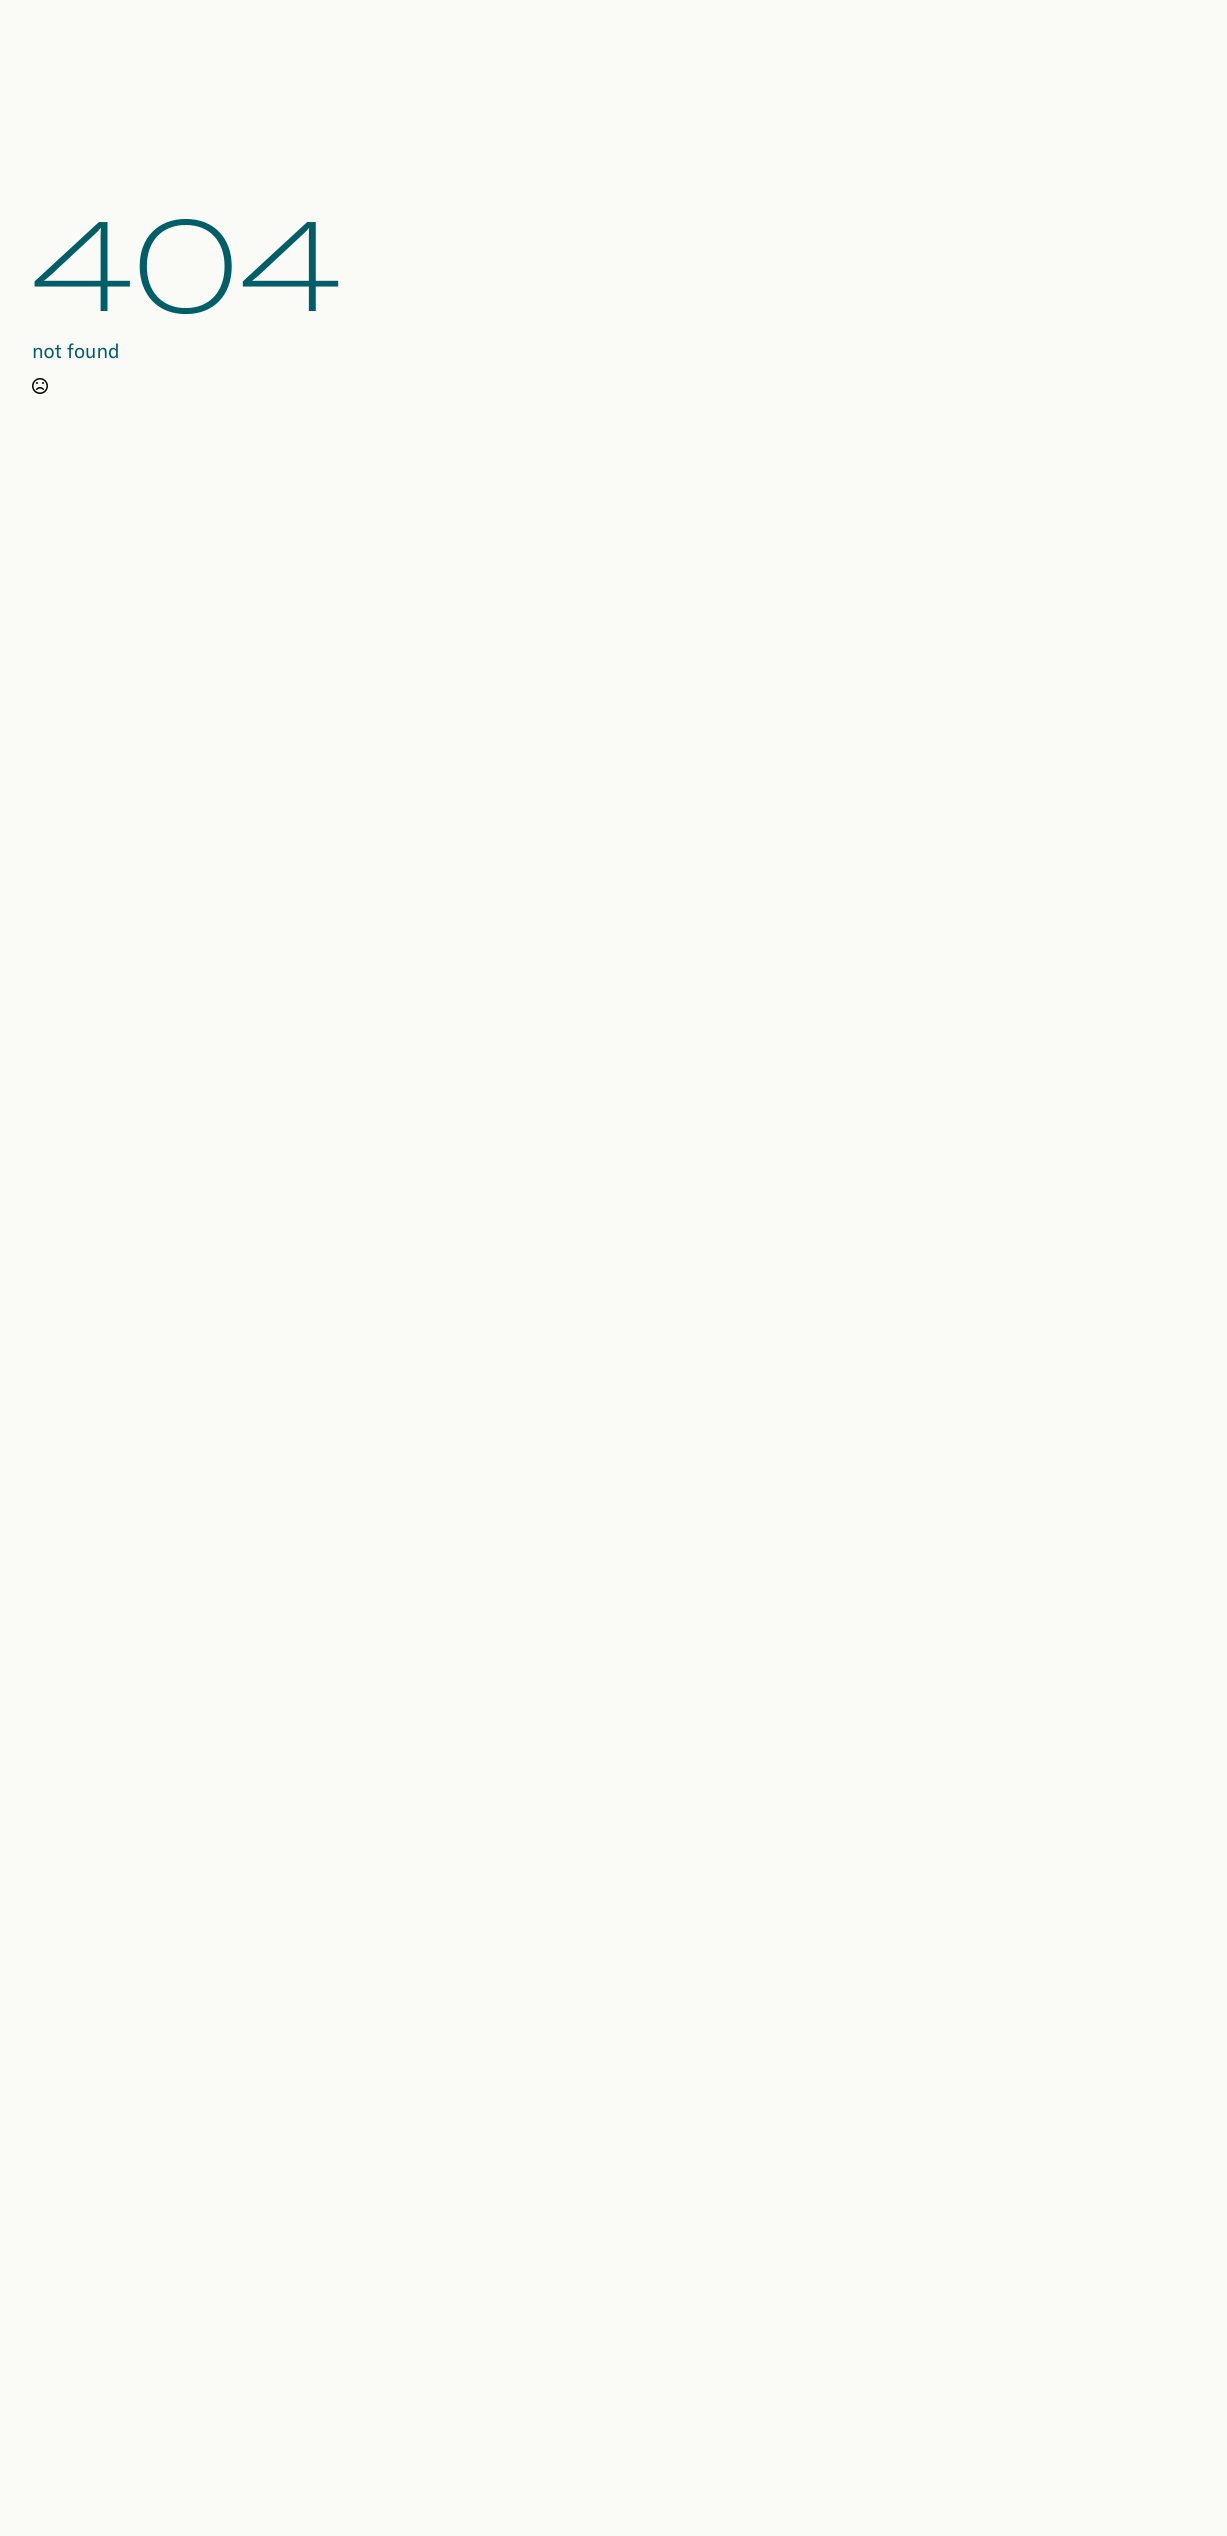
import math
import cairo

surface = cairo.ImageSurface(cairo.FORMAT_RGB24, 1227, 2536)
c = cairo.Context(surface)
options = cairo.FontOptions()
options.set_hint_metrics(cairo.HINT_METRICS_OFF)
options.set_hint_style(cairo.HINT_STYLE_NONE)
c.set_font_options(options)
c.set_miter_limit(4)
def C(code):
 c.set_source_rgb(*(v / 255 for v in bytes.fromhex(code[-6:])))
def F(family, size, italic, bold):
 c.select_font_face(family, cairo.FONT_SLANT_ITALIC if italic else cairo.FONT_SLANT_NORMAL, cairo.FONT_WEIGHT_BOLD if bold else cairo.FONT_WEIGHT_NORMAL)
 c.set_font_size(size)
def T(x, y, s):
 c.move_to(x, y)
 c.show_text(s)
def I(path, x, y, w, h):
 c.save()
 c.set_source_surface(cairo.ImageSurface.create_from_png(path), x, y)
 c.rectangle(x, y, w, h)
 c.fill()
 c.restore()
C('fafaf7')
c.paint()
F('GT America Thin',128,0,0)
C('005e69')
T(32,311,'404')
F('GT America',20,0,0)
T(32,358,'not found')
I('1.png',32,378,16,16)
surface.write_to_png('o.png')
